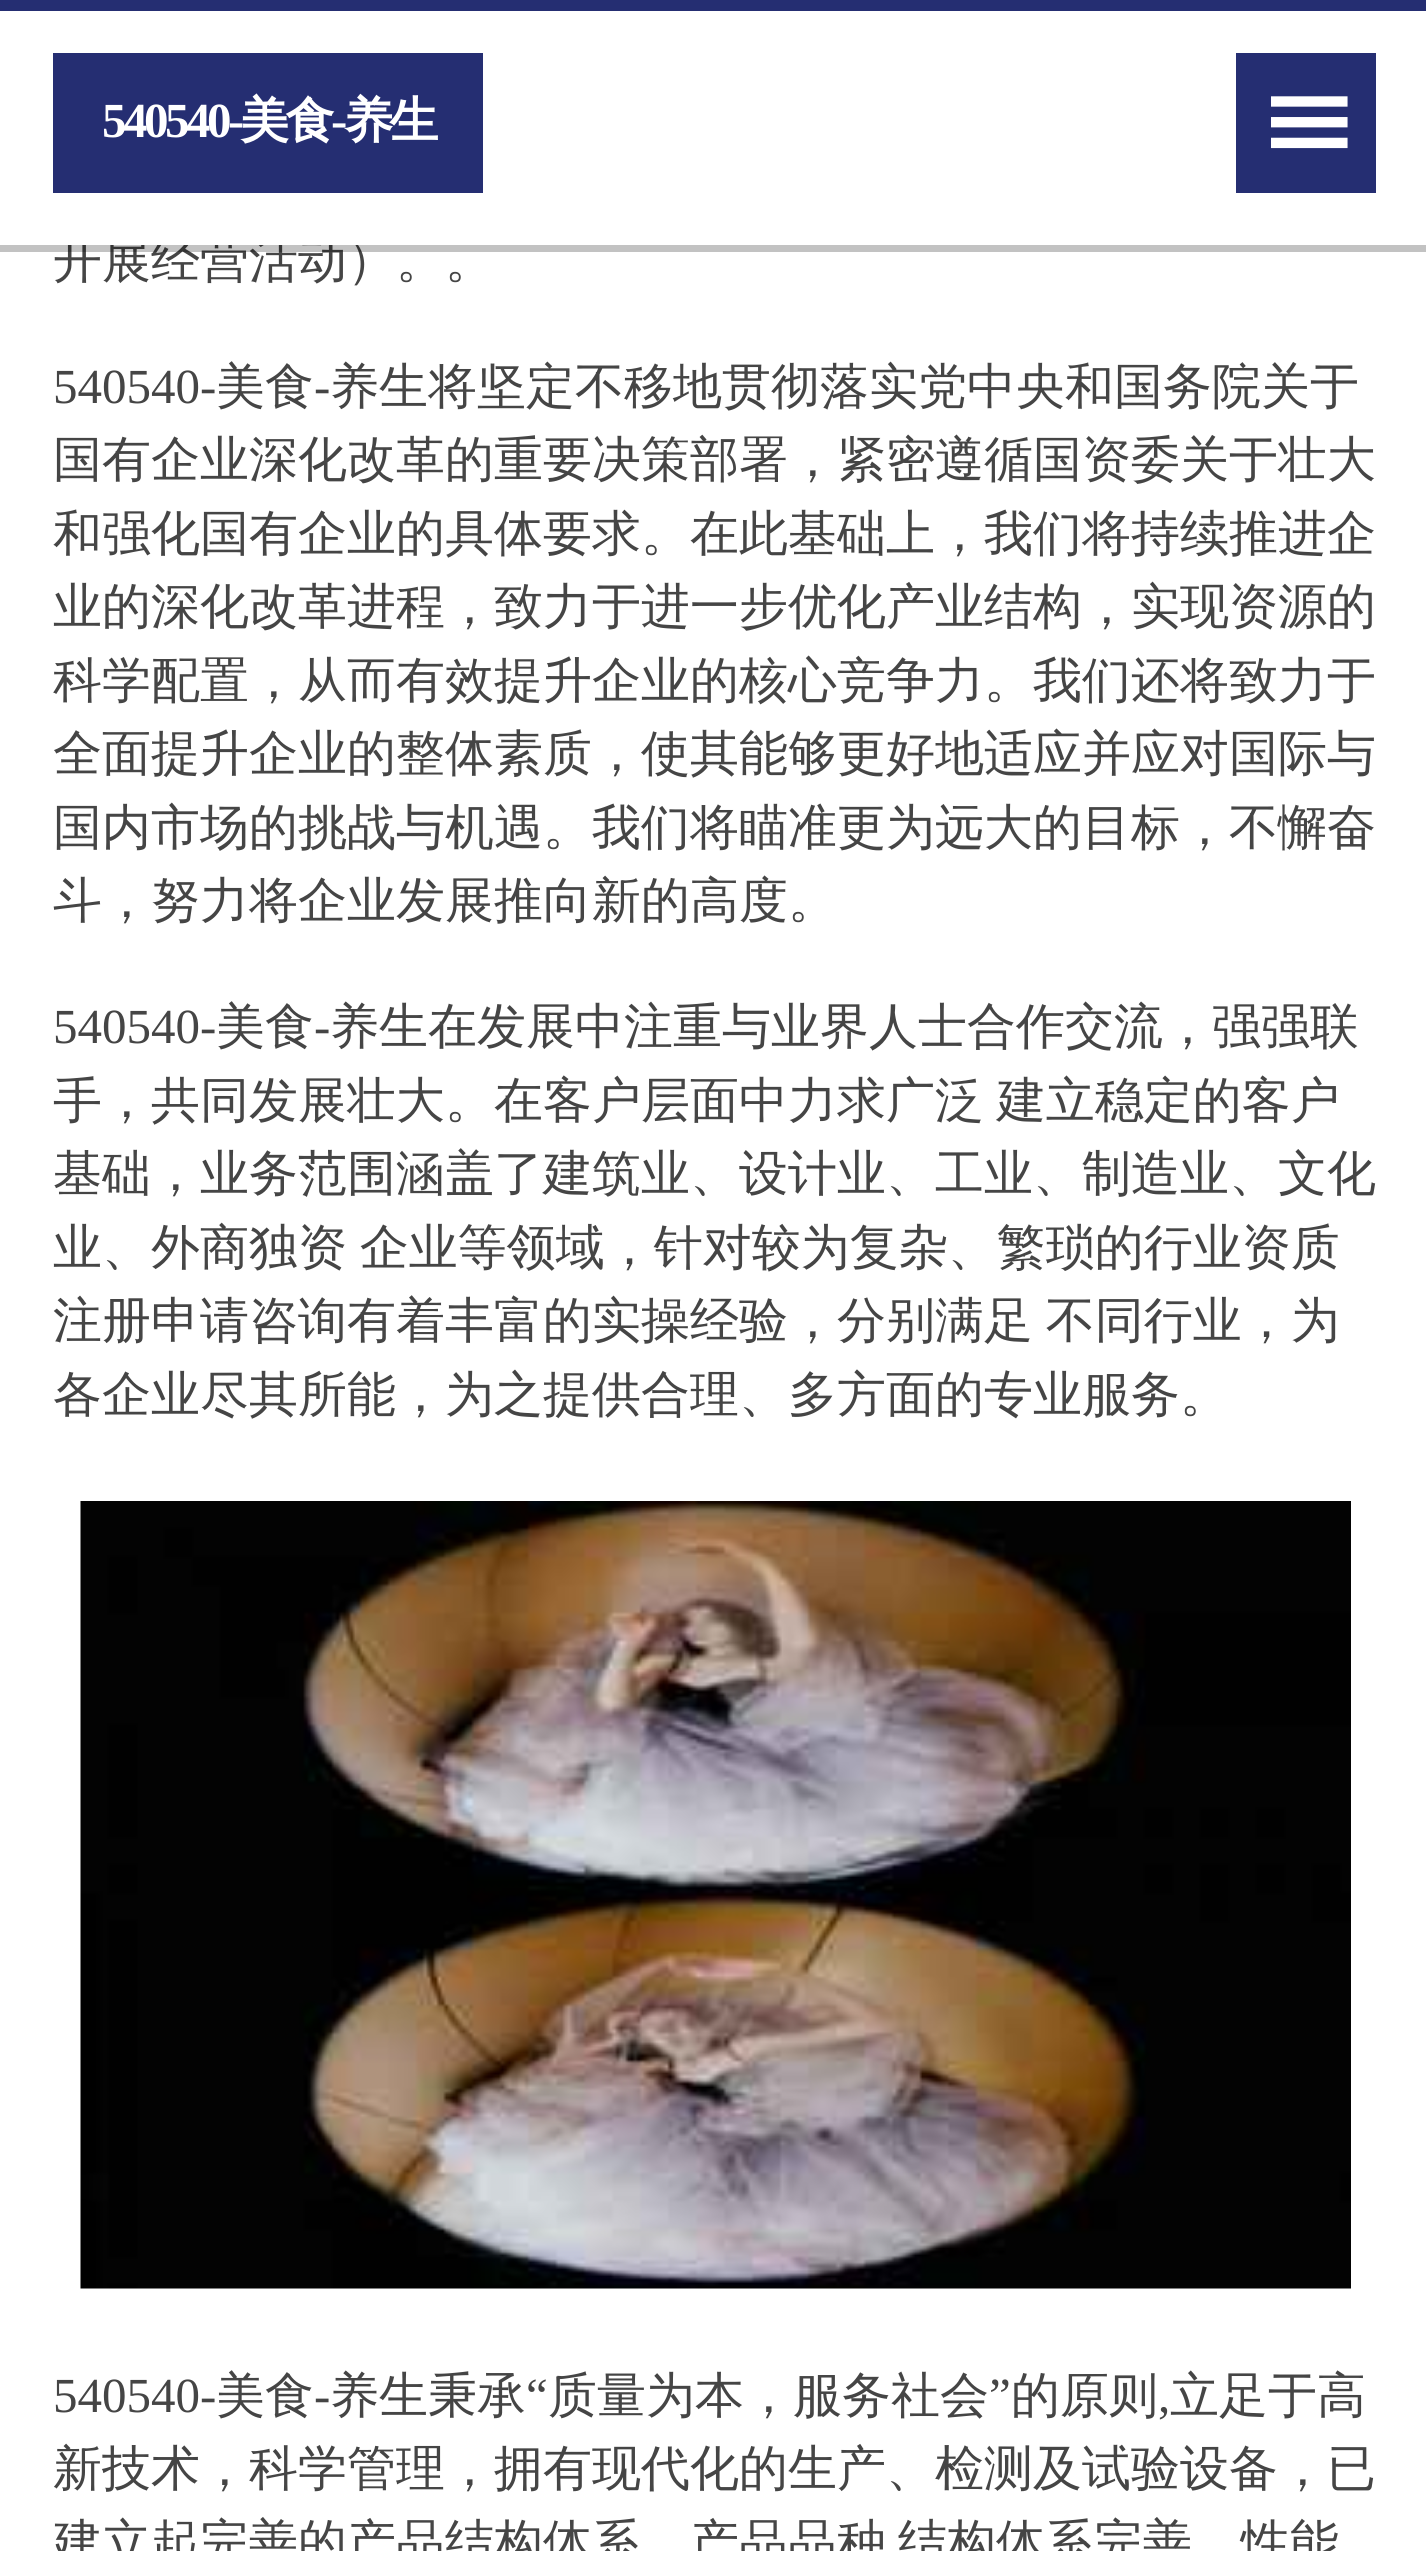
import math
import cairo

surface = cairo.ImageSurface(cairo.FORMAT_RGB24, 1426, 2551)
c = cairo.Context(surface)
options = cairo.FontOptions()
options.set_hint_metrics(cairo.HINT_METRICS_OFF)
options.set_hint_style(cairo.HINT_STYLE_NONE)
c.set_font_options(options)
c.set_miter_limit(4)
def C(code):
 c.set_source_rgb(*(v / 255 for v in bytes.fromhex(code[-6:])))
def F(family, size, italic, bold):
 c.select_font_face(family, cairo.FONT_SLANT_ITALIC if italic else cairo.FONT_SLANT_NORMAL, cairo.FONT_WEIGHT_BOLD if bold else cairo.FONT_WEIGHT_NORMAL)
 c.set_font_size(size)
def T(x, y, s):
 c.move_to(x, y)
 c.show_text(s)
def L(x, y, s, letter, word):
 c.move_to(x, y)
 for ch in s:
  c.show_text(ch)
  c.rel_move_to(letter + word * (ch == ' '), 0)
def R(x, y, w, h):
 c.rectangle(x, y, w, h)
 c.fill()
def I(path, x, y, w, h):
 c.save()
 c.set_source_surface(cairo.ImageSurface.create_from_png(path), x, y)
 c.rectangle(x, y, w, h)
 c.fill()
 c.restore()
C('ffffff')
c.paint()
F('WenQuanYi Zen Hei Medium',49,0,0)
C('454545')
T(53,277,'开展经营活动）。。')
C('ffffff')
R(57,236,301,9)
C('252e72')
R(0,0,1426,11)
R(53,53,430,140)
F('Liberation Serif',49,0,1)
C('ffffff')
L(102,137,'540540-',-3.5,0)
F('WenQuanYi Zen Hei',49,0,1)
L(240,137,'美食',-3.5,0)
F('Liberation Serif',49,0,1)
L(331,137,'-',-3.5,0)
F('WenQuanYi Zen Hei',49,0,1)
L(344,137,'养生',-3.5,0)
C('252e72')
R(1236,53,140,140)
F('DejaVu Sans',105,0,0)
C('ffffff')
c.save()
c.translate(1271,86)
c.rotate(90 * math.pi / 180)
T(0,0,'Ⅲ')
c.restore()
c.set_source_rgba(0,0,0,0.24)
R(0,245,1426,7)
F('Liberation Serif',49,0,0)
C('454545')
T(53,403,'540540-')
F('WenQuanYi Zen Hei Medium',49,0,0)
T(216,403,'美食')
F('Liberation Serif',49,0,0)
T(314,403,'-')
F('WenQuanYi Zen Hei Medium',49,0,0)
T(330,403,'养生将坚定不移地贯彻落实党中央和国务院关于')
T(53,476,'国有企业深化改革的重要决策部署，紧密遵循国资委关于壮大')
T(53,550,'和强化国有企业的具体要求。在此基础上，我们将持续推进企')
T(53,623,'业的深化改革进程，致力于进一步优化产业结构，实现资源的')
T(53,697,'科学配置，从而有效提升企业的核心竞争力。我们还将致力于')
T(53,770,'全面提升企业的整体素质，使其能够更好地适应并应对国际与')
T(53,844,'国内市场的挑战与机遇。我们将瞄准更为远大的目标，不懈奋')
T(53,917,'斗，努力将企业发展推向新的高度。')
F('Liberation Serif',49,0,0)
T(53,1043,'540540-')
F('WenQuanYi Zen Hei Medium',49,0,0)
T(216,1043,'美食')
F('Liberation Serif',49,0,0)
T(314,1043,'-')
F('WenQuanYi Zen Hei Medium',49,0,0)
T(330,1043,'养生在发展中注重与业界人士合作交流，强强联')
L(53,1117,'手，共同发展壮大。在客户层面中力求广泛 建立稳定的客户',0,-2)
T(53,1190,'基础，业务范围涵盖了建筑业、设计业、工业、制造业、文化')
L(53,1264,'业、外商独资 企业等领域，针对较为复杂、繁琐的行业资质',0,-2)
L(53,1337,'注册申请咨询有着丰富的实操经验，分别满足 不同行业，为',0,-2)
T(53,1411,'各企业尽其所能，为之提供合理、多方面的专业服务。')
I('1.png',80,1501,1271,788)
F('Liberation Serif',49,0,0)
T(53,2412,'540540-')
F('WenQuanYi Zen Hei Medium',49,0,0)
T(216,2412,'美食')
T(330,2412,'养生秉承')
F('Liberation Serif',49,0,0)
T(526,2412,'“')
F('WenQuanYi Zen Hei Medium',49,0,0)
T(548,2412,'质量为本，服务社会')
F('Liberation Serif',49,0,0)
T(989,2412,'”')
F('WenQuanYi Zen Hei Medium',49,0,0)
T(1011,2412,'的原则')
T(1170,2412,'立足于高')
F('Liberation Serif',49,0,0)
T(314,2412,'-')
T(1158,2412,',')
F('WenQuanYi Zen Hei Medium',49,0,0)
T(53,2485,'新技术，科学管理，拥有现代化的生产、检测及试验设备，已')
T(53,2559,'建立起完善的产品结构体系，产品品种')
T(898,2559,'结构体系完善，性能')
surface.write_to_png('o.png')
